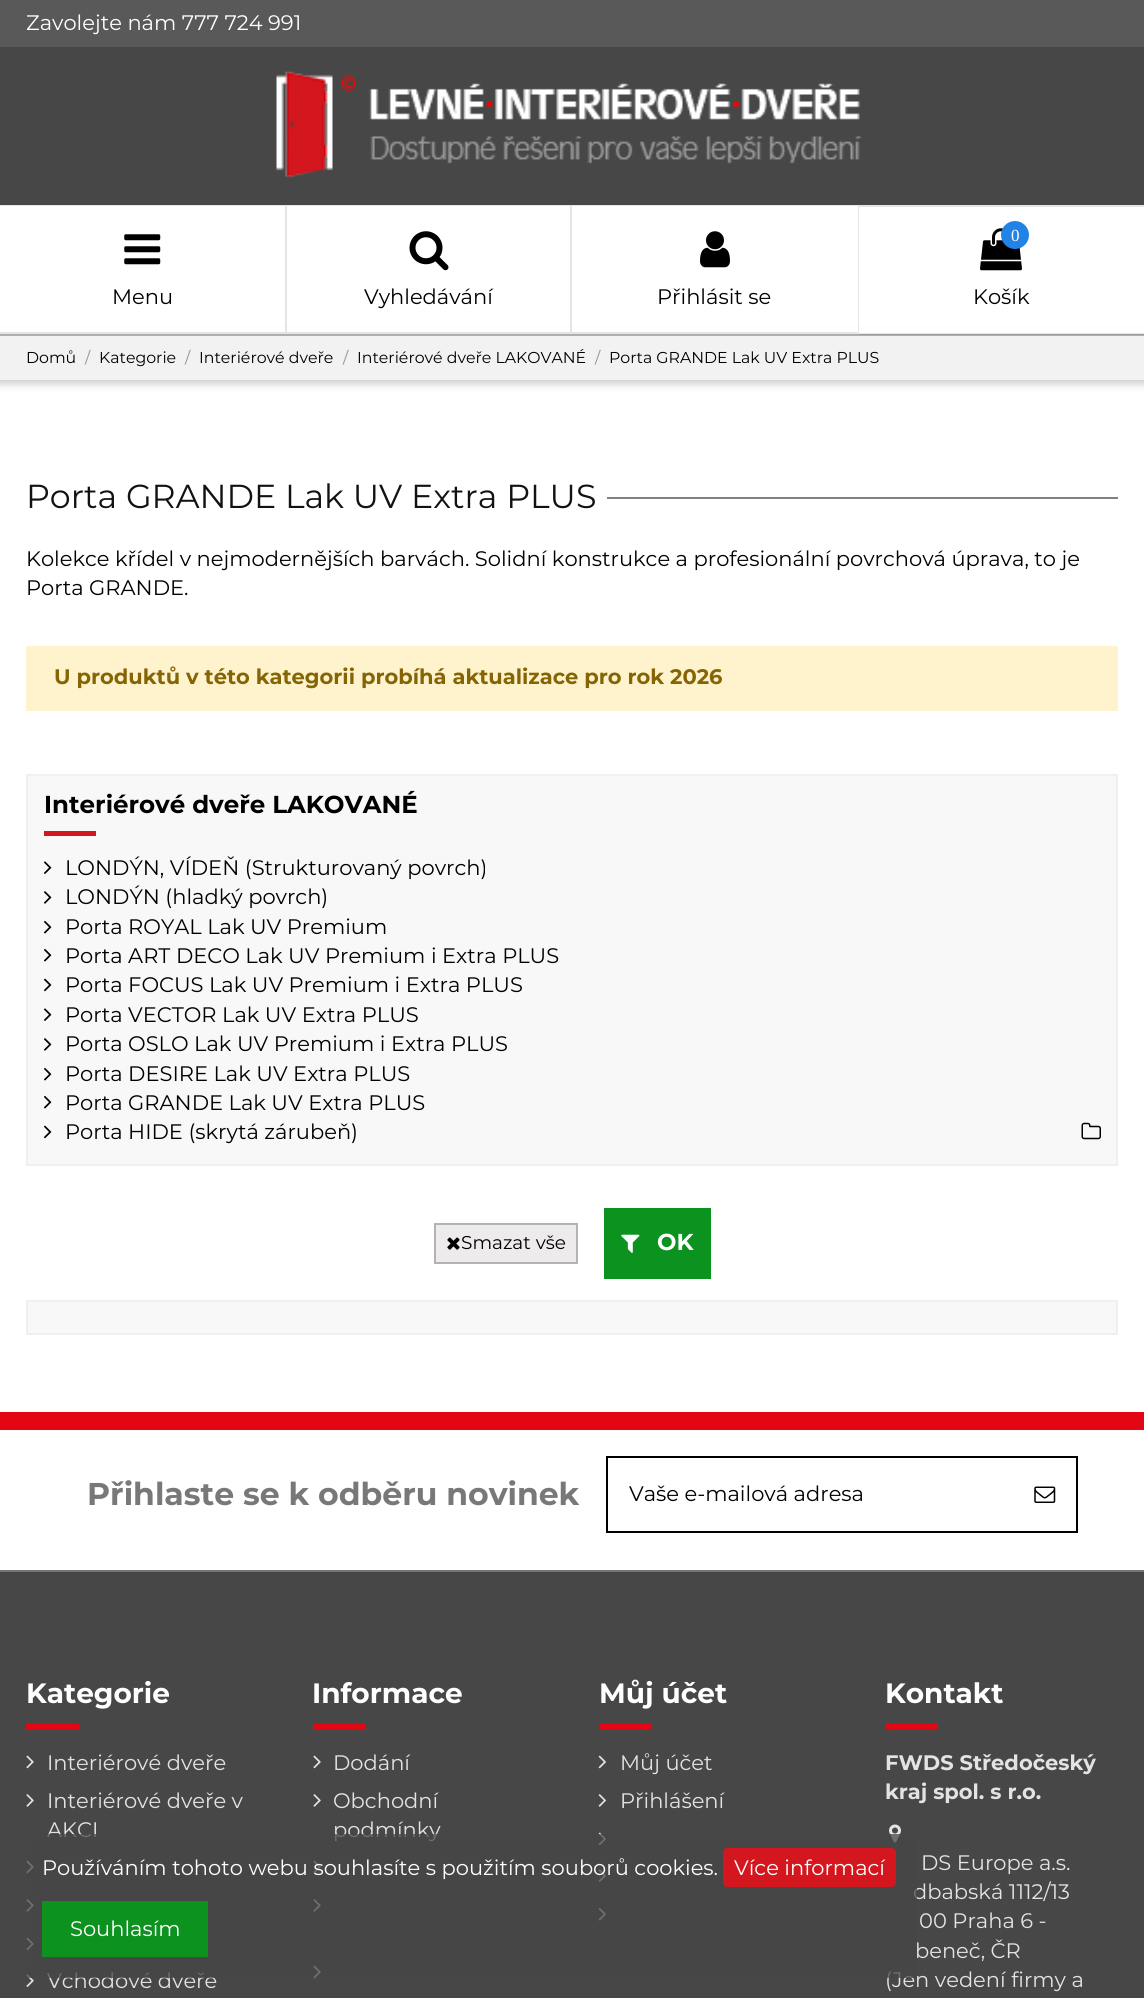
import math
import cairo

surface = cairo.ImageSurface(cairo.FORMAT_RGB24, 1144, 1998)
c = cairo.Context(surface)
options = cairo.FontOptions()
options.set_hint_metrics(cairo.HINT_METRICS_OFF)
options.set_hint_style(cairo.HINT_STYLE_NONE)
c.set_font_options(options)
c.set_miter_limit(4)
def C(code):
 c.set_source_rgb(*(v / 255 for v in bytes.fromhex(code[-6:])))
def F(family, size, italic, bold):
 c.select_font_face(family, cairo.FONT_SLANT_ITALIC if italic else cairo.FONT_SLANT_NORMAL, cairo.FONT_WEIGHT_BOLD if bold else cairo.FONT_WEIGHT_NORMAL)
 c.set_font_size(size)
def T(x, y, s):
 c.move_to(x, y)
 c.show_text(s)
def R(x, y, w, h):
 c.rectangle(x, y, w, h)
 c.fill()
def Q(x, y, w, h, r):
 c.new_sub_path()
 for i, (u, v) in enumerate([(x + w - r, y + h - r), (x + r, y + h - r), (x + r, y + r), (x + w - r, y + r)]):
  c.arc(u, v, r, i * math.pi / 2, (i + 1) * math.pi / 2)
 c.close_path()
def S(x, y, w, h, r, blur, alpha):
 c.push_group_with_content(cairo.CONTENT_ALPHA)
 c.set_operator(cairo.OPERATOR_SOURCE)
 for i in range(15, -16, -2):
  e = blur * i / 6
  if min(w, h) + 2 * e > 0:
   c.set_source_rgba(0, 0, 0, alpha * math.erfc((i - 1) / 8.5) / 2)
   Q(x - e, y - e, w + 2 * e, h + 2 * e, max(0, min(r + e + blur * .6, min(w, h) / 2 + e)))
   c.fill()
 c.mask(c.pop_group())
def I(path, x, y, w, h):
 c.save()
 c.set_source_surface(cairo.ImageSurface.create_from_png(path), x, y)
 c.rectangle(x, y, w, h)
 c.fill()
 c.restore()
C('ffffff')
c.paint()
C('474747')
R(0,47,1144,158)
C('595959')
R(0,0,1144,47)
F('Montserrat',21,0,0)
C('ffffff')
T(26,30,'Zavolejte nám 777 724 991')
C('c4c4c4')
S(-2,336,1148,47,0,4.5,1)
C('afafaf')
R(0,334,1144,2)
I('1.png',276,71,586,107)
C('ffffff')
R(0,328,1144,6)
C('e5e5e5')
c.new_path()
c.move_to(0,205)
c.line_to(287,205)
c.line_to(285,206)
c.line_to(0,206)
c.close_path()
c.fill()
c.set_source_rgba(0.082,0.082,0.082,0.11)
c.new_path()
c.move_to(287,205)
c.line_to(287,334)
c.line_to(285,332)
c.line_to(285,206)
c.close_path()
c.fill()
c.new_path()
c.move_to(287,334)
c.line_to(0,334)
c.line_to(0,332)
c.line_to(285,332)
c.close_path()
c.fill()
I('2.png',124,234,37,31)
C('000000')
T(112,304,'Menu')
C('e5e5e5')
c.new_path()
c.move_to(287,205)
c.line_to(572,205)
c.line_to(570,206)
c.line_to(287,206)
c.close_path()
c.fill()
c.set_source_rgba(0.082,0.082,0.082,0.11)
c.new_path()
c.move_to(572,205)
c.line_to(572,334)
c.line_to(570,332)
c.line_to(570,206)
c.close_path()
c.fill()
c.new_path()
c.move_to(572,334)
c.line_to(287,334)
c.line_to(287,332)
c.line_to(570,332)
c.close_path()
c.fill()
I('3.png',409,231,40,40)
C('000000')
T(364,304,'Vyhledávání')
C('e5e5e5')
c.new_path()
c.move_to(572,205)
c.line_to(859,205)
c.line_to(858,206)
c.line_to(572,206)
c.close_path()
c.fill()
c.set_source_rgba(0.082,0.082,0.082,0.11)
c.new_path()
c.move_to(859,205)
c.line_to(859,334)
c.line_to(858,332)
c.line_to(858,206)
c.close_path()
c.fill()
c.new_path()
c.move_to(859,334)
c.line_to(572,334)
c.line_to(572,332)
c.line_to(858,332)
c.close_path()
c.fill()
I('4.png',700,231,30,37)
C('000000')
T(657,304,'Přihlásit se')
C('e5e5e5')
R(859,205,285,2)
c.set_source_rgba(0.082,0.082,0.082,0.11)
R(859,333,285,2)
I('5.png',980,228,42,43)
C('2183e6')
c.arc(1015,235,14,0,2 * math.pi)
c.fill()
F('Liberation Serif',17,0,0)
C('ffffff')
T(1011,241,'0')
F('Montserrat',21,0,0)
C('000000')
T(973,304,'Košík')
C('f2f2f2')
R(0,336,1144,44)
F('Montserrat',15.75,0,0)
C('000000')
T(26,363,'Domů')
C('919191')
T(85,363,'/')
C('000000')
T(99,363,'Kategorie')
C('919191')
T(185,363,'/')
C('000000')
T(199,363,'Interiérové dveře')
C('919191')
T(343,363,'/')
C('000000')
T(357,363,'Interiérové dveře LAKOVANÉ')
C('919191')
T(595,363,'/')
C('000000')
T(609,363,'Porta GRANDE Lak UV Extra PLUS')
F('Montserrat',33.25,0,0)
C('121212')
T(26,508,'Porta GRANDE Lak UV Extra PLUS')
C('808080')
R(607,497,511,2)
F('Montserrat',21,0,0)
C('000000')
T(26,566,'Kolekce křídel v nejmodernějších barvách. Solidní konstrukce a profesionální povrchová úprava, to je')
T(26,595,'Porta GRANDE.')
C('fff3cd')
R(26,646,1092,65)
F('Montserrat',21,0,1)
C('856404')
T(54,684,'U produktů v této kategorii probíhá aktualizace pro rok 2026')
C('f8f8f8')
c.rectangle(27,775,1090,390)
c.fill_preserve()
C('f0f0f0')
c.stroke()
F('Montserrat',24.5,0,1)
C('000000')
T(44,813,'Interiérové dveře LAKOVANÉ')
C('d4161e')
R(44,831,52,5)
I('6.png',44,861,8,13)
F('Montserrat',21,0,0)
C('000000')
T(65,875,'LONDÝN, VÍDEŇ (Strukturovaný povrch)')
I('7.png',44,891,8,13)
T(65,904,'LONDÝN (hladký povrch)')
I('8.png',44,920,8,14)
T(65,934,'Porta ROYAL Lak UV Premium')
I('8.png',44,948,8,14)
T(65,963,'Porta ART DECO Lak UV Premium i Extra PLUS')
I('9.png',44,978,8,14)
T(65,992,'Porta FOCUS Lak UV Premium i Extra PLUS')
I('6.png',44,1008,8,13)
T(65,1022,'Porta VECTOR Lak UV Extra PLUS')
I('7.png',44,1038,8,13)
T(65,1051,'Porta OSLO Lak UV Premium i Extra PLUS')
I('8.png',44,1067,8,14)
T(65,1081,'Porta DESIRE Lak UV Extra PLUS')
I('8.png',44,1095,8,14)
T(65,1110,'Porta GRANDE Lak UV Extra PLUS')
I('9.png',44,1125,8,14)
T(65,1139,'Porta HIDE (skrytá zárubeň)')
I('10.png',1081,1122,20,18)
C('edebeb')
c.rectangle(435,1224,142,39)
c.fill_preserve()
C('b4b3b3')
c.stroke()
I('11.png',447,1237,13,13)
F('Montserrat',18.5,0,0)
C('000000')
T(461,1249,'Smazat vše')
C('0c921e')
R(604,1208,107,71)
I('12.png',621,1234,19,19)
F('Montserrat',23,0,1)
C('ffffff')
T(657,1250,'OK')
C('f8f8f8')
c.rectangle(27,1301,1090,33)
c.fill_preserve()
C('f0f0f0')
c.stroke()
C('474747')
R(0,1572,1144,426)
C('e30613')
R(0,1412,1144,18)
F('Montserrat',31.5,0,1)
C('787878')
T(87,1505,'Přihlaste se k odběru novinek')
c.rectangle(607,1457,470,75)
C('000000')
c.stroke()
F('Montserrat',21,0,0)
T(629,1501,'Vaše e-mailová adresa')
I('13.png',1034,1486,22,17)
C('757575')
R(0,1570,1144,2)
F('Montserrat',28,0,1)
C('ffffff')
T(26,1703,'Kategorie')
C('e30613')
R(26,1724,53,5)
I('14.png',26,1755,8,14)
F('Montserrat',21,0,0)
C('e3e3e3')
T(47,1770,'Interiérové dveře')
I('15.png',26,1794,8,13)
T(47,1808,'Interiérové dveře v')
T(47,1837,'AKCI')
I('14.png',26,1860,8,14)
I('15.png',26,1899,8,13)
I('14.png',26,1937,8,14)
I('16.png',26,1974,8,13)
T(47,1988,'Vchodové dveře')
F('Montserrat',28,0,1)
C('ffffff')
T(312,1703,'Informace')
C('e30613')
R(313,1724,53,5)
I('14.png',313,1755,8,14)
F('Montserrat',21,0,0)
C('e3e3e3')
T(333,1770,'Dodání')
I('15.png',313,1794,8,13)
T(333,1808,'Obchodní')
T(333,1837,'podmínky')
I('14.png',313,1860,8,14)
I('15.png',313,1899,8,13)
I('14.png',313,1965,8,14)
F('Montserrat',28,0,1)
C('ffffff')
T(599,1703,'Můj účet')
C('e30613')
R(599,1724,52,5)
I('17.png',598,1755,8,14)
F('Montserrat',21,0,0)
C('e3e3e3')
T(620,1770,'Můj účet')
I('18.png',598,1794,8,13)
T(620,1808,'Přihlášení')
I('17.png',598,1832,8,14)
I('19.png',598,1869,8,13)
I('20.png',598,1907,8,14)
F('Montserrat',28,0,1)
C('ffffff')
T(885,1703,'Kontakt')
C('e30613')
R(886,1724,52,5)
F('Montserrat',21,0,1)
C('e3e3e3')
T(885,1770,'FWDS Středočeský')
T(885,1799,'kraj spol. s r.o.')
I('21.png',889,1824,12,19)
F('Montserrat',21,0,0)
T(921,1870,'DS Europe a.s.')
T(913,1899,'dbabská 1112/13')
T(919,1928,'00 Praha 6 -')
T(915,1958,'beneč, ČR')
T(885,1987,'(Jen vedení firmy a')
c.set_source_rgba(0.275,0.275,0.275,0.74)
R(26,1834,891,144)
C('ffffff')
T(42,1875,'Používáním tohoto webu souhlasíte s použitím souborů cookies.')
C('d4161e')
Q(723,1848,173,39,5)
c.fill()
C('ffffff')
T(734,1875,'Více informací')
C('0c921e')
R(42,1901,166,56)
C('ffffff')
T(70,1936,'Souhlasím')
surface.write_to_png('o.png')
